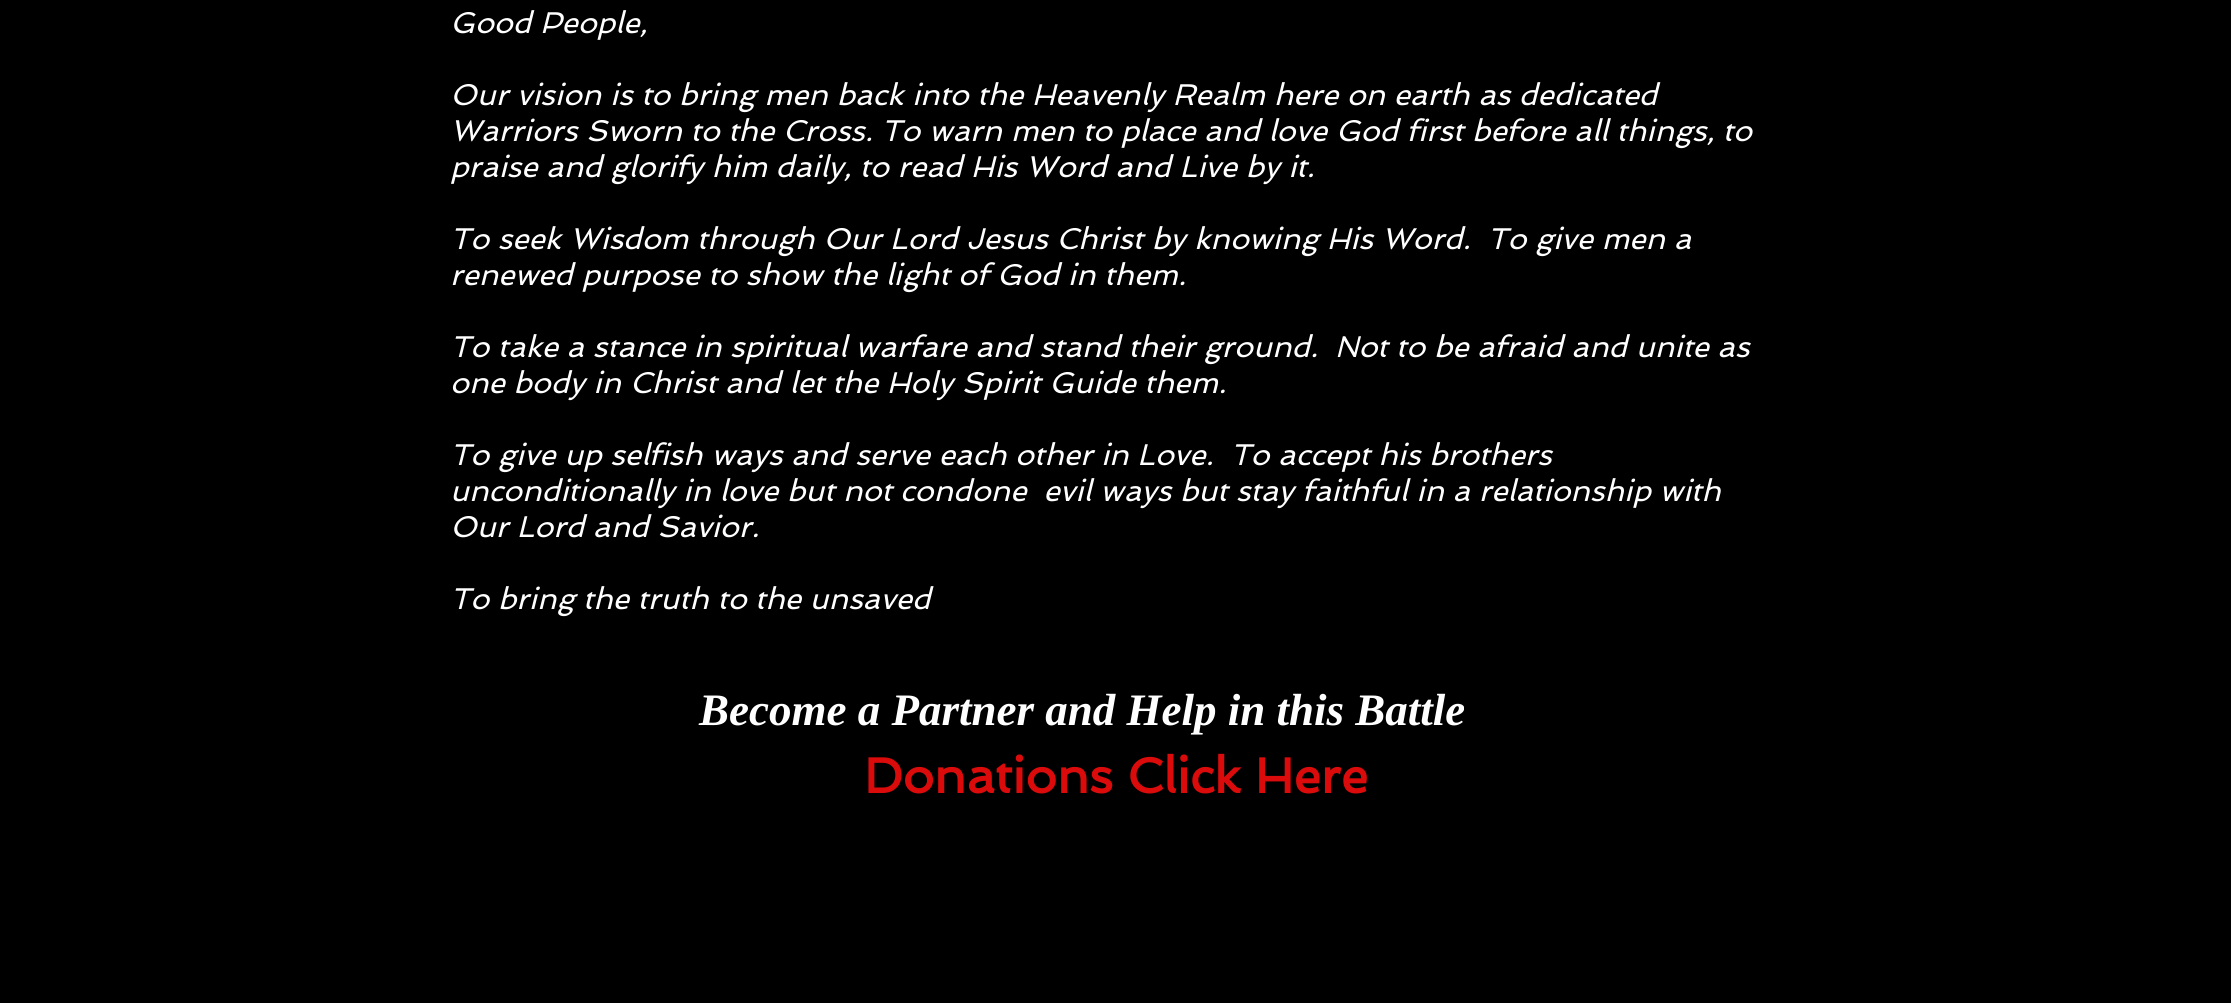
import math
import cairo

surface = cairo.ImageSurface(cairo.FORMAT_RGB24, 2231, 1003)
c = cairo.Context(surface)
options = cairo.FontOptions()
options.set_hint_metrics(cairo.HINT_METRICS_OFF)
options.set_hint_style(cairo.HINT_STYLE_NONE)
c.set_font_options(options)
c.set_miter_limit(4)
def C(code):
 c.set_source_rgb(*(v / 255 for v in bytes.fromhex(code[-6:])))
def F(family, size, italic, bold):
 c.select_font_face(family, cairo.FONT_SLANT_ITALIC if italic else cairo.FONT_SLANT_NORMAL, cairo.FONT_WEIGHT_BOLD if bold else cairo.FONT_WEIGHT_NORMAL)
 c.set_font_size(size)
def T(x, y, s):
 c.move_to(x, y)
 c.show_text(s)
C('000000')
c.paint()
F('Spinnaker',30,1,0)
C('ffffff')
T(450,33,'Good People,')
T(450,105,'Our vision is to bring men back into the Heavenly Realm here on earth as dedicated')
T(450,141,'Warriors Sworn to the Cross. To warn men to place and love God first before all things, to')
T(450,177,'praise and glorify him daily, to read His Word and Live by it.')
T(450,249,'To seek Wisdom through Our Lord Jesus Christ by knowing His Word.  To give men a')
T(450,285,'renewed purpose to show the light of God in them.')
T(450,357,'To take a stance in spiritual warfare and stand their ground.  Not to be afraid and unite as')
T(450,393,'one body in Christ and let the Holy Spirit Guide them.')
T(450,465,'To give up selfish ways and serve each other in Love.  To accept his brothers')
T(450,501,'unconditionally in love but not condone  evil ways but stay faithful in a relationship with')
T(450,537,'Our Lord and Savior.')
T(450,609,'To bring the truth to the unsaved')
F('Liberation Serif',45,1,1)
T(699,725,'Become a Partner and Help in this Battle')
F('Spinnaker',49.5,0,1)
C('db0b0b')
T(864,793,'Donations Click Here')
surface.write_to_png('o.png')
